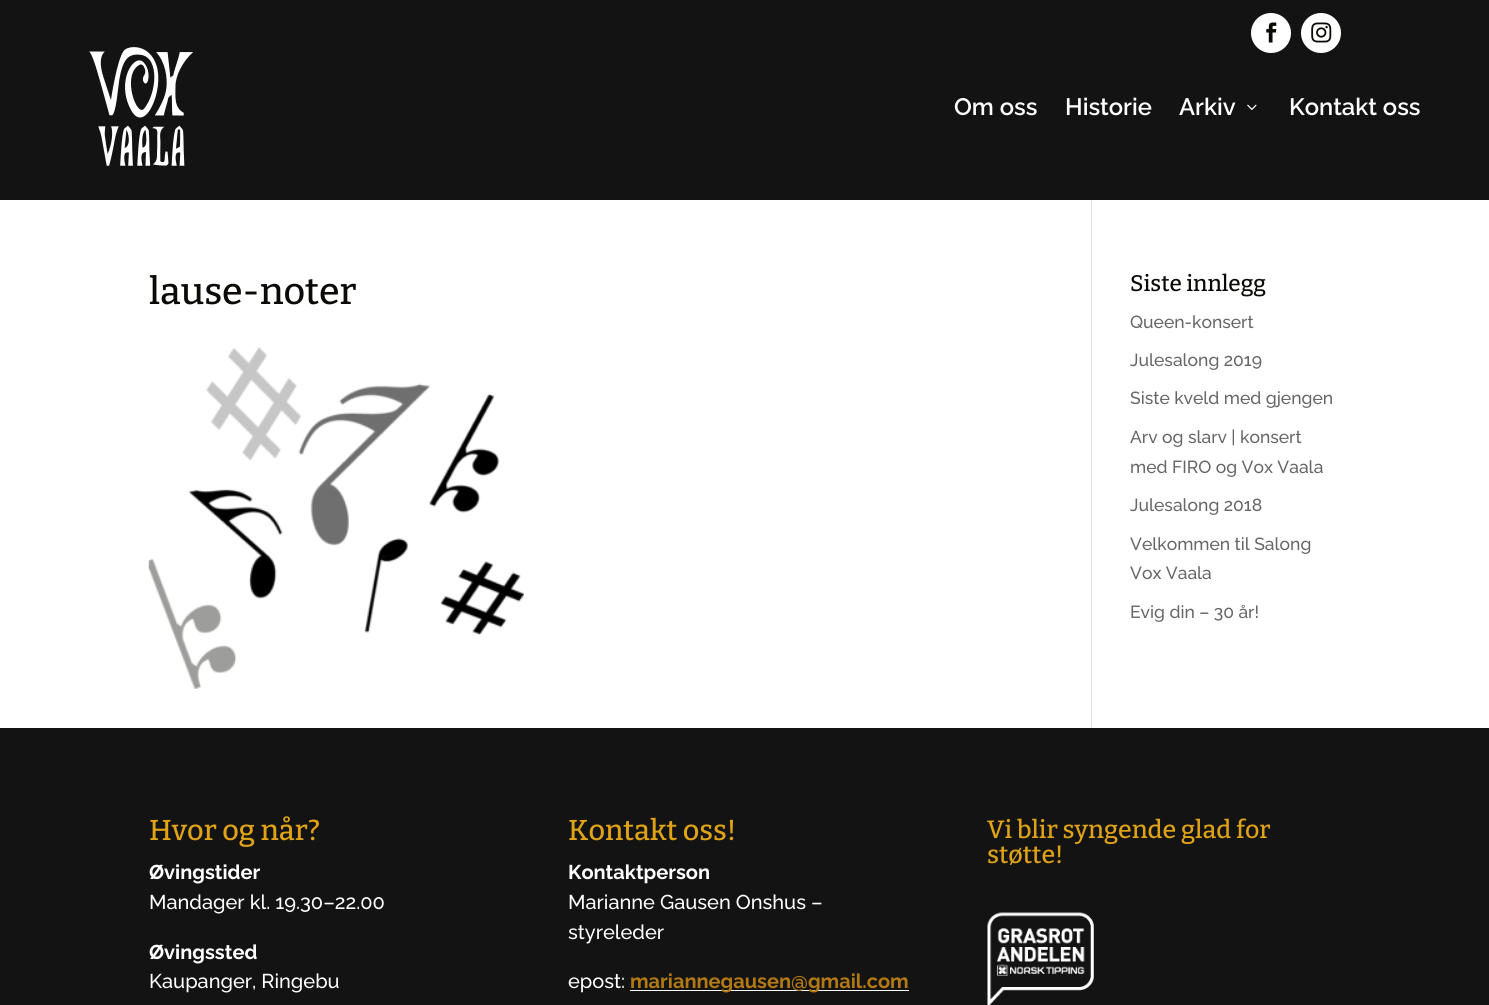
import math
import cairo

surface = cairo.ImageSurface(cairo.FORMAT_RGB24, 1489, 1005)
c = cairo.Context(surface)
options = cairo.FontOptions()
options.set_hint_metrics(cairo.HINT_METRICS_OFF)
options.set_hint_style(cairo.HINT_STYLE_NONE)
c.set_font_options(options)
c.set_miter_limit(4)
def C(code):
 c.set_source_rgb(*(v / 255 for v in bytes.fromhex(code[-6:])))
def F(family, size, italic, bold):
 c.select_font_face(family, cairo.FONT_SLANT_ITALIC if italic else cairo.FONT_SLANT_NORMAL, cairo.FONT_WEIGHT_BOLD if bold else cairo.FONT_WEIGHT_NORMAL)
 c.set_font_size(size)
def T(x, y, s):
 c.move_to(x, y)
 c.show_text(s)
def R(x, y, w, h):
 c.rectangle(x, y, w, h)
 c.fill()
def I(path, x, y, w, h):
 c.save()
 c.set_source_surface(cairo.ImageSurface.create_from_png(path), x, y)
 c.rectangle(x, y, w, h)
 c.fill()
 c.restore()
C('ffffff')
c.paint()
C('131313')
R(0,0,1489,200)
C('ffffff')
c.arc(1271,33,20,0,2 * math.pi)
c.fill()
I('1.png',1266,22,11,21)
c.arc(1321,33,20,0,2 * math.pi)
c.fill()
I('2.png',1311,22,21,21)
I('3.png',89,47,104,119)
F('Raleway SemiBold',23.75,0,0)
T(954,115,'Om oss')
T(1065,115,'Historie')
T(1179,115,'Arkiv')
I('4.png',1247,104,10,6)
T(1289,115,'Kontakt oss')
C('e2e2e2')
R(1091,200,1,528)
F('Bitter Medium',37.5,0,0)
C('0b0a06')
T(149,304,'lause-noter')
I('5.png',148,347,376,342)
F('Bitter Medium',22.5,0,0)
T(1130,291,'Siste innlegg')
F('Raleway Medium',17.5,0,0)
C('666666')
T(1130,328,'Queen-konsert')
T(1130,366,'Julesalong 2019')
T(1130,404,'Siste kveld med gjengen')
T(1130,443,'Arv og slarv | konsert')
T(1130,473,'med FIRO og Vox Vaala')
T(1130,511,'Julesalong 2018')
T(1130,550,'Velkommen til Salong')
T(1130,579,'Vox Vaala')
T(1130,618,'Evig din – 30 år!')
C('131313')
R(0,728,1489,277)
F('Bitter Medium',28.75,0,0)
C('e0a316')
T(149,840,'Hvor og når?')
F('Raleway',20,0,1)
C('ffffff')
T(149,879,'Øvingstider')
F('Raleway Medium',20,0,0)
T(149,909,'Mandager kl. 19.30–22.00')
F('Raleway',20,0,1)
T(149,959,'Øvingssted')
F('Raleway Medium',20,0,0)
T(149,988,'Kaupanger, Ringebu')
F('Bitter Medium',28.75,0,0)
C('e0a316')
T(568,840,'Kontakt oss!')
F('Raleway',20,0,1)
C('ffffff')
T(568,879,'Kontaktperson')
F('Raleway Medium',20,0,0)
T(568,909,'Marianne Gausen Onshus –')
T(568,939,'styreleder')
T(568,988,'epost:')
R(630,990,279,1)
F('Raleway',20,0,1)
C('b37912')
T(630,988,'mariannegausen@gmail.com')
F('Bitter Medium',25,0,0)
C('e0a316')
T(987,838,'Vi blir syngende glad for')
T(987,863,'støtte!')
I('6.png',987,912,107,93)
surface.write_to_png('o.png')
